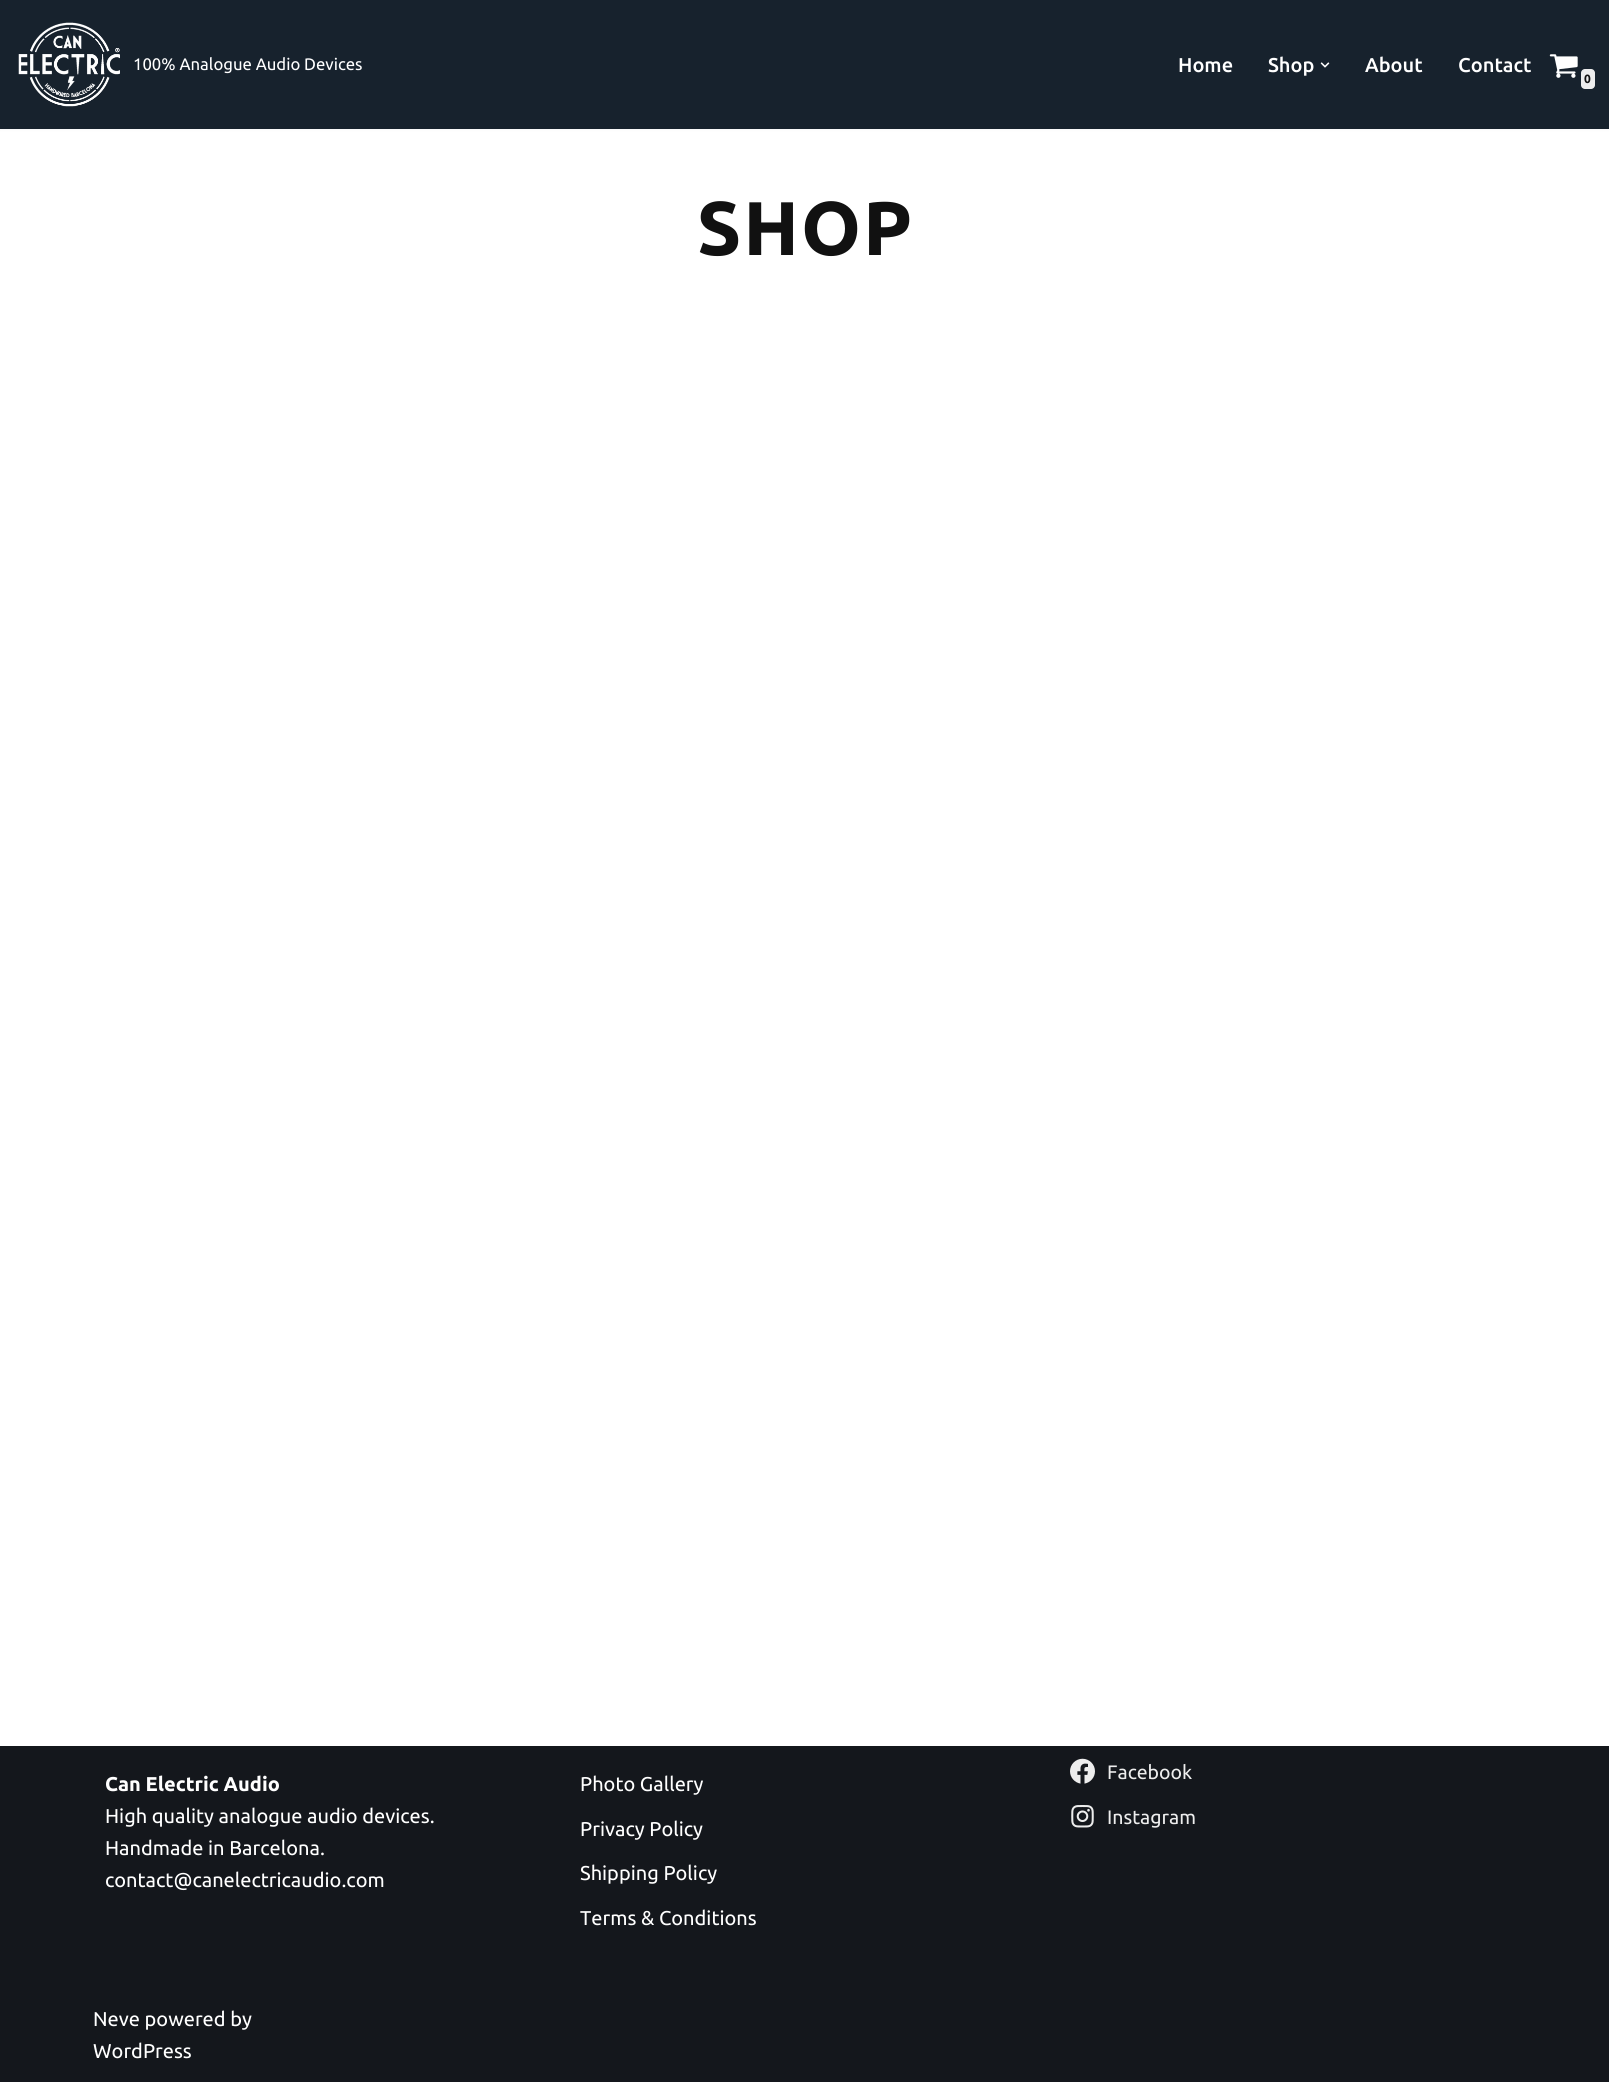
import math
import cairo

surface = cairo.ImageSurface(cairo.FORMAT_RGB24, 1609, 2082)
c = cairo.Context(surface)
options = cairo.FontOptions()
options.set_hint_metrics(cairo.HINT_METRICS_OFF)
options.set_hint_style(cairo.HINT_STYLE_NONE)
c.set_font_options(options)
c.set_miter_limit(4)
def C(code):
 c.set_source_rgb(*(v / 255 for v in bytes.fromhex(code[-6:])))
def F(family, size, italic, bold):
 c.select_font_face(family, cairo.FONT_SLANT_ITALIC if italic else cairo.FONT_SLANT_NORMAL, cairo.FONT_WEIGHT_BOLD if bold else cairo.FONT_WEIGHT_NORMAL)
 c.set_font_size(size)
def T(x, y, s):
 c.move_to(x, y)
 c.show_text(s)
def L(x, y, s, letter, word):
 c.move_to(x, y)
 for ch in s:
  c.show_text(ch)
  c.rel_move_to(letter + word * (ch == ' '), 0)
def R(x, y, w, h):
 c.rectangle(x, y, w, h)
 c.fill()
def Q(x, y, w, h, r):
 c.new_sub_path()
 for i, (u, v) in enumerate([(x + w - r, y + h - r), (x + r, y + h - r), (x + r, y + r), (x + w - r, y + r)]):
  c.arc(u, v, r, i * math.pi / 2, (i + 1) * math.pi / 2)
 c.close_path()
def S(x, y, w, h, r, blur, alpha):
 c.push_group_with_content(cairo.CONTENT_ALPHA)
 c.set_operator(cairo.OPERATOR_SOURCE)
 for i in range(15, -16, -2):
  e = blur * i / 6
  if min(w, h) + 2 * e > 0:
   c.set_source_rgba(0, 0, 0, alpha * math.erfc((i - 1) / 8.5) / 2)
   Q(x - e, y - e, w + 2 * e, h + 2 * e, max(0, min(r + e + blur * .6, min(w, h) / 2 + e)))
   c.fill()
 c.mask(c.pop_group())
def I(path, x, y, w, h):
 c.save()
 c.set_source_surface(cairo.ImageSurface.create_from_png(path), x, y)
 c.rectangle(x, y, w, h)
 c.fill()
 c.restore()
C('ffffff')
c.paint()
C('000000')
S(0,-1,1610,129,0,2,.1)
C('17222d')
R(0,0,1609,129)
I('1.png',18,22,102,85)
F('Ubuntu',16.7,0,0)
C('ffffff')
T(133,70,'100% Analogue Audio Devices')
F('Ubuntu Medium',20,0,0)
T(1178,72,'Home')
T(1268,72,'Shop')
I('2.png',1320,62,10,6)
T(1365,72,'About')
T(1458,72,'Contact')
I('3.png',1549,54,29,24)
C('ededed')
Q(1581,69,14,20,4)
c.fill()
F('Ubuntu',12,0,1)
C('111111')
T(1584,83,'0')
F('Ubuntu',76,0,1)
L(697,255,'SHOP',2,0)
C('14171c')
R(0,1746,1609,336)
F('Ubuntu',20,0,1)
C('ffffff')
T(105,1791,'Can Electric Audio')
F('Ubuntu',20,0,0)
T(105,1823,'High quality analogue audio devices.')
T(105,1855,'Handmade in Barcelona.')
T(105,1887,'contact@canelectricaudio.com')
T(580,1791,'Photo Gallery')
T(580,1836,'Privacy Policy')
T(580,1880,'Shipping Policy')
T(580,1925,'Terms & Conditions')
I('4.png',1070,1758,25,26)
F('Ubuntu',19.5,0,0)
C('ededed')
T(1107,1779,'Facebook')
I('5.png',1071,1805,23,23)
T(1107,1824,'Instagram')
F('Ubuntu',20,0,0)
C('ffffff')
T(93,2026,'Neve powered by')
T(93,2058,'WordPress')
surface.write_to_png('o.png')
